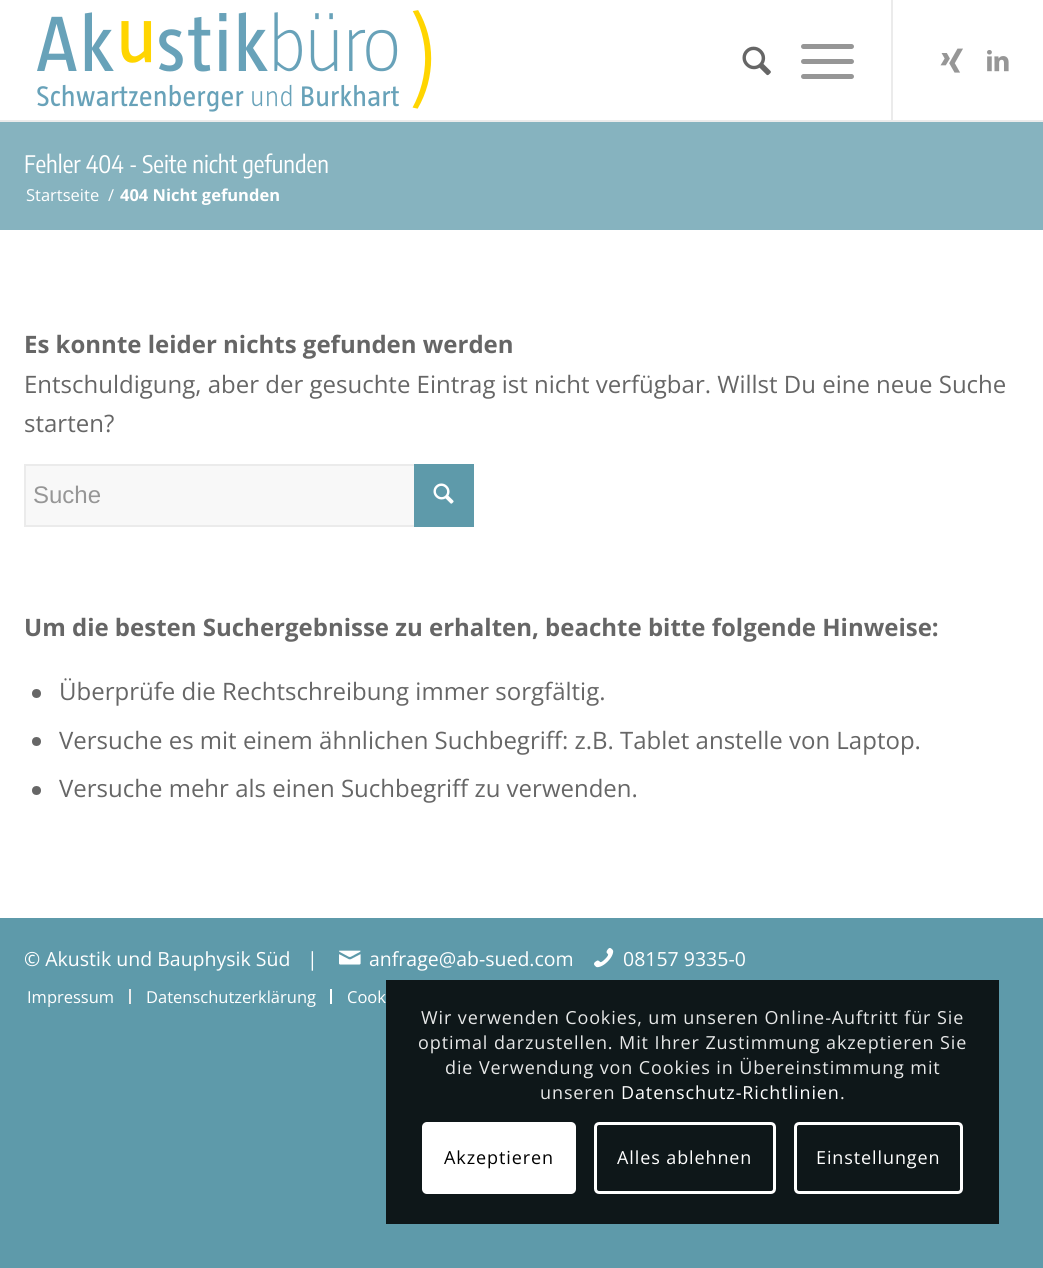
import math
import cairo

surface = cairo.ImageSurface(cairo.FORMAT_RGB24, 1043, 1268)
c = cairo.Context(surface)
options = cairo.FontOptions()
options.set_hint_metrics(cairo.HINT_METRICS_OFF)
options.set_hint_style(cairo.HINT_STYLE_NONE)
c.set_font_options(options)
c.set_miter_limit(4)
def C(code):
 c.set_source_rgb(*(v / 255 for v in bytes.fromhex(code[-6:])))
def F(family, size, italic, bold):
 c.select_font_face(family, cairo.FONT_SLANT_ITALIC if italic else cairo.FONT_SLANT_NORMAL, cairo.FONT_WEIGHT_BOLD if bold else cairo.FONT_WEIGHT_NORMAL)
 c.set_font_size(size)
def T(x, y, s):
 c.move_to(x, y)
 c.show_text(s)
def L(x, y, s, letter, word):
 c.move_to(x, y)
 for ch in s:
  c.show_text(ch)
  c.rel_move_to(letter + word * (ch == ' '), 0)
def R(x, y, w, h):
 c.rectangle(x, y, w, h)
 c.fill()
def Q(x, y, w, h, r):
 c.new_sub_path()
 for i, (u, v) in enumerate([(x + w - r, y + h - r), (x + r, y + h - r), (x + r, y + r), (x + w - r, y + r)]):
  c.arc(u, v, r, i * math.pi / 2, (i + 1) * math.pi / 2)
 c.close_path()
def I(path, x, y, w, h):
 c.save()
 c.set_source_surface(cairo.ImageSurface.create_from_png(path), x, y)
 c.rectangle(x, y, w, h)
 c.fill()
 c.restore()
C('5e9aaa')
c.paint()
C('ffffff')
R(0,0,1043,918)
C('ebebeb')
R(0,120,1043,2)
I('1.png',37,10,395,102)
R(891,0,2,120)
I('2.png',742,46,29,30)
C('969696')
Q(801,59,53,5,2.5)
c.fill()
Q(801,44,53,5,2.5)
c.fill()
Q(801,74,53,5,2.5)
c.fill()
I('3.png',940,48,23,25)
I('4.png',987,50,22,22)
C('86b3bf')
R(0,122,1043,108)
F('Encode Sans Condensed',24,0,0)
C('ffffff')
T(24,173,'Fehler 404 - Seite nicht gefunden')
F('Open Sans',16.5,0,0)
T(26,201,'Startseite')
T(108,201,'/')
F('Open Sans',16.5,0,1)
T(120,201,'404 Nicht gefunden')
F('Open Sans',24,0,1)
C('666666')
T(24,353,'Es konnte leider nichts gefunden werden')
F('Open Sans',24,0,0)
T(24,393,'Entschuldigung, aber der gesuchte Eintrag ist nicht verfügbar. Willst Du eine neue Suche')
T(24,432,'starten?')
C('f8f8f8')
R(26,466,388,59)
c.rectangle(25,465,448,61)
C('ebebeb')
c.stroke()
F('Liberation Sans',24,0,0)
C('969696')
T(33,503,'Suche')
C('5e9aaa')
R(414,464,60,63)
I('5.png',433,483,21,21)
F('Open Sans',24,0,1)
C('666666')
T(24,636,'Um die besten Suchergebnisse zu erhalten, beachte bitte folgende Hinweise:')
c.new_path()
c.arc(36.5,693.5,4.5,0,2 * math.pi)
c.fill()
F('Open Sans',24,0,0)
T(59,700,'Überprüfe die Rechtschreibung immer sorgfältig.')
c.new_path()
c.arc(36.5,741.5,4.5,0,2 * math.pi)
c.fill()
T(59,749,'Versuche es mit einem ähnlichen Suchbegriff: z.B. Tablet anstelle von Laptop.')
c.new_path()
c.arc(36.5,790.5,4.5,0,2 * math.pi)
c.fill()
T(59,797,'Versuche mehr als einen Suchbegriff zu verwenden.')
F('Open Sans',19.5,0,0)
C('ffffff')
T(24,966,'© Akustik und Bauphysik Süd')
T(307,966,'|')
I('6.png',339,950,22,15)
T(369,966,'anfrage@ab-sued.com')
I('7.png',594,948,20,20)
T(623,966,'08157 9335-0')
F('Open Sans',16.5,0,0)
T(27,1003,'Impressum')
C('ebebeb')
R(129,989,2,15)
C('ffffff')
T(146,1003,'Datenschutzerklärung')
R(330,989,2,15)
T(347,1003,'Cook')
c.set_source_rgba(0,0,0,0.85)
R(386,980,613,244)
F('Open Sans',18,0,0)
C('e7e8e8')
L(421,1024,'Wir verwenden Cookies, um unseren Online-Auftritt für Sie',.9,0)
L(418,1049,'optimal darzustellen. Mit Ihrer Zustimmung akzeptieren Sie',.9,0)
L(445,1074,'die Verwendung von Cookies in Übereinstimmung mit',.9,0)
L(540,1099,'unseren',.9,0)
C('ffffff')
L(621,1099,'Datenschutz-Richtlinien',.9,0)
C('e7e8e8')
L(840,1099,'.',.9,0)
C('ffffff')
Q(422,1122,154,72,5)
c.fill()
C('000000')
L(444,1164,'Akzeptieren',.9,0)
Q(595.5,1123.5,179,69,3.5)
C('ffffff')
c.set_line_width(3)
c.stroke()
L(617,1164,'Alles ablehnen',.9,0)
Q(795.5,1123.5,166,69,3.5)
c.stroke()
L(816,1164,'Einstellungen',.9,0)
surface.write_to_png('o.png')
